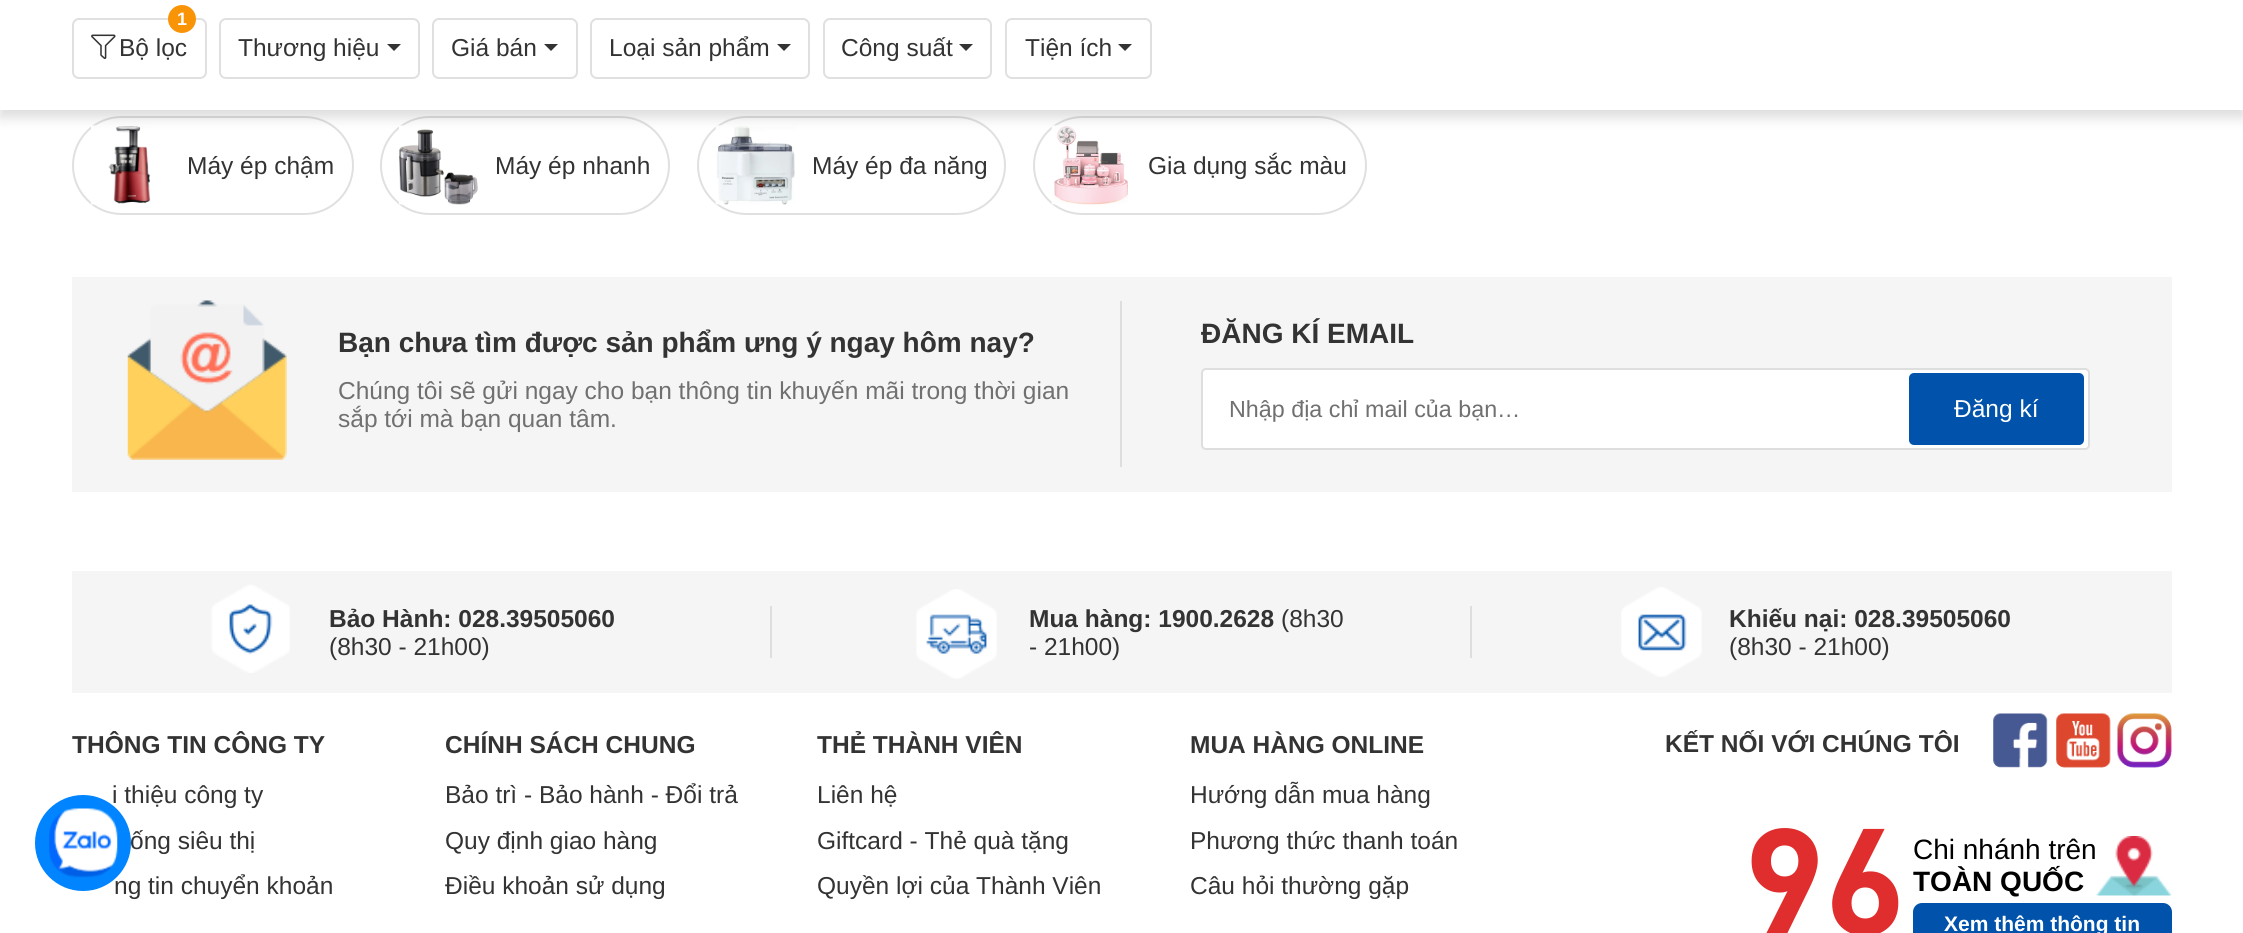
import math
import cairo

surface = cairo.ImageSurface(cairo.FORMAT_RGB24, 2243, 933)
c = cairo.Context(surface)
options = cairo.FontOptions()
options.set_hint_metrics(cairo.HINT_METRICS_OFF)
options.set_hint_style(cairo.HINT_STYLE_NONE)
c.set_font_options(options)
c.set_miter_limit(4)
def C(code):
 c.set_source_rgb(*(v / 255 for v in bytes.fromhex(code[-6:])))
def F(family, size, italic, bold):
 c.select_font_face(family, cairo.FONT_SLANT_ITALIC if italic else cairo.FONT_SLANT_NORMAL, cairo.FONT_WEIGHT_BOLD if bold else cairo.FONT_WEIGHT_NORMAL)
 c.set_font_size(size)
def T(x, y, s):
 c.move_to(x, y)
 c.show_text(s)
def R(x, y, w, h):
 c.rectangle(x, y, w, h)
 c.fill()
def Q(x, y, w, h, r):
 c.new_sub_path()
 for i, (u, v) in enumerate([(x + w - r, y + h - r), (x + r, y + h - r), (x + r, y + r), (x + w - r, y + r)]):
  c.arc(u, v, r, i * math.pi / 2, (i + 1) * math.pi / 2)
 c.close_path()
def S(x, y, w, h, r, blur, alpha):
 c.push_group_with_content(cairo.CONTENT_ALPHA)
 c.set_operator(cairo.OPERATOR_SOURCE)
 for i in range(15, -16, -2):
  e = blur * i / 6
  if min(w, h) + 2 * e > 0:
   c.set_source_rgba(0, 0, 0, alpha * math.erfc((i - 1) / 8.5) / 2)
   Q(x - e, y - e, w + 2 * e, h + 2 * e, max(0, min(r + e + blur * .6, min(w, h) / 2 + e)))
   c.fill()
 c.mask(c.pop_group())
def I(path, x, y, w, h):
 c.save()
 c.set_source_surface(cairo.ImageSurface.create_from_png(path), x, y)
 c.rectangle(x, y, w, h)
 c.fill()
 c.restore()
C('ffffff')
c.paint()
Q(73,117,280,97,48.5)
C('e0e0e0')
c.stroke()
I('2.png',91,125,60,80)
Q(381,117,288,97,48.5)
c.stroke()
I('3.png',399,125,79,80)
Q(698,117,307,97,48.5)
c.stroke()
I('4.png',715,125,80,80)
Q(1034,117,332,97,48.5)
c.stroke()
I('5.png',1051,125,77,80)
C('000000')
S(0,7,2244,110,0,7,.15)
C('ffffff')
R(0,0,2243,110)
Q(73,19,133,59,6)
C('e0e0e0')
c.stroke()
C('f89406')
c.arc(182,19,14,0,2 * math.pi)
c.fill()
F('Liberation Sans',18,0,1)
C('ffffff')
T(177,25,'1')
I('1.png',91,34,25,26)
F('Liberation Sans',24.5,0,0)
C('333333')
T(119,56,'Bộ lọc')
Q(220,19,199,59,6)
C('e0e0e0')
c.stroke()
C('333333')
T(238,56,'Thương hiệu')
c.new_path()
c.move_to(387,44)
c.line_to(401,44)
c.line_to(394,51)
c.close_path()
c.fill()
Q(433,19,144,59,6)
C('e0e0e0')
c.stroke()
C('333333')
T(451,56,'Giá bán')
c.new_path()
c.move_to(544,44)
c.line_to(558,44)
c.line_to(551,51)
c.close_path()
c.fill()
Q(591,19,218,59,6)
C('e0e0e0')
c.stroke()
C('333333')
T(609,56,'Loại sản phẩm')
c.new_path()
c.move_to(777,44)
c.line_to(791,44)
c.line_to(784,51)
c.close_path()
c.fill()
Q(824,19,167,59,6)
C('e0e0e0')
c.stroke()
C('333333')
T(841,56,'Công suất')
c.new_path()
c.move_to(959,44)
c.line_to(973,44)
c.line_to(966,51)
c.close_path()
c.fill()
Q(1006,19,145,59,6)
C('e0e0e0')
c.stroke()
C('333333')
T(1025,56,'Tiện ích')
c.new_path()
c.move_to(1118,44)
c.line_to(1132,44)
c.line_to(1125,51)
c.close_path()
c.fill()
T(187,174,'Máy ép chậm')
T(495,174,'Máy ép nhanh')
T(812,174,'Máy ép đa năng')
T(1148,174,'Gia dụng sắc màu')
C('f5f5f5')
R(72,277,2100,215)
I('6.png',127,300,160,160)
C('dedede')
R(1120,301,2,166)
F('Liberation Sans',28,0,1)
C('333333')
T(338,352,'Bạn chưa tìm được sản phẩm ưng ý ngay hôm nay?')
F('Liberation Sans',24.5,0,0)
C('707070')
T(338,399,'Chúng tôi sẽ gửi ngay cho bạn thông tin khuyến mãi trong thời gian')
T(338,427,'sắp tới mà bạn quan tâm.')
F('Liberation Sans',28,0,1)
C('333333')
T(1201,343,'ĐĂNG KÍ EMAIL')
C('ffffff')
Q(1202,369,887,80,4)
c.fill_preserve()
C('dedede')
c.stroke()
F('Liberation Sans',23.3,0,0)
C('707070')
T(1229,417,'Nhập địa chỉ mail của bạn…')
C('0052aa')
Q(1909,373,175,72,5)
c.fill()
F('Liberation Sans',24.5,0,0)
C('ffffff')
T(1954,417,'Đăng kí')
C('f5f5f5')
R(72,571,2100,122)
I('7.png',211,584,79,89)
F('Liberation Sans',24.5,0,1)
C('333333')
T(329,627,'Bảo Hành: 028.39505060')
F('Liberation Sans',24.5,0,0)
T(329,655,'(8h30 - 21h00)')
C('dedede')
R(770,606,2,52)
I('8.png',916,589,81,90)
F('Liberation Sans',24.5,0,1)
C('333333')
T(1029,627,'Mua hàng: 1900.2628')
F('Liberation Sans',24.5,0,0)
T(1281,627,'(8h30')
T(1029,655,'- 21h00)')
C('dedede')
R(1470,606,2,52)
I('9.png',1621,587,81,90)
F('Liberation Sans',24.5,0,1)
C('333333')
T(1729,627,'Khiếu nại: 028.39505060')
F('Liberation Sans',24.5,0,0)
T(1729,655,'(8h30 - 21h00)')
F('Liberation Sans',24.5,0,1)
T(72,753,'THÔNG TIN CÔNG TY')
F('Liberation Sans',24.5,0,0)
T(112,803,'i thiệu công ty')
T(130,849,'ống siêu thị')
T(114,894,'ng tin chuyển khoản')
F('Liberation Sans',24.5,0,1)
T(445,753,'CHÍNH SÁCH CHUNG')
F('Liberation Sans',24.5,0,0)
T(445,803,'Bảo trì - Bảo hành - Đổi trả')
T(445,849,'Quy định giao hàng')
T(445,894,'Điều khoản sử dụng')
F('Liberation Sans',24.5,0,1)
T(817,753,'THẺ THÀNH VIÊN')
F('Liberation Sans',24.5,0,0)
T(817,803,'Liên hệ')
T(817,849,'Giftcard - Thẻ quà tặng')
T(817,894,'Quyền lợi của Thành Viên')
F('Liberation Sans',24.5,0,1)
T(1190,753,'MUA HÀNG ONLINE')
F('Liberation Sans',24.5,0,0)
T(1190,803,'Hướng dẫn mua hàng')
T(1190,849,'Phương thức thanh toán')
T(1190,894,'Câu hỏi thường gặp')
F('Liberation Sans',24.5,0,1)
T(1665,752,'KẾT NỐI VỚI CHÚNG TÔI')
I('10.png',1993,713,55,55)
I('11.png',2056,713,55,55)
I('12.png',2117,713,55,55)
F('DIN',149,0,1)
C('e02e2e')
T(1744,935,'96')
F('Liberation Sans',28,0,0)
C('000000')
T(1913,859,'Chi nhánh trên')
F('Liberation Sans',28,0,1)
T(1913,891,'TOÀN QUỐC')
I('13.png',2096,836,76,60)
C('0052aa')
Q(1913,903,259,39,9)
c.fill()
F('Liberation Sans',21,0,1)
C('ffffff')
T(1944,931,'Xem thêm thông tin')
C('0084ff')
c.new_path()
c.arc(83,843,48,0,2 * math.pi)
c.fill()
I('14.png',49,808,69,70)
surface.write_to_png('o.png')
